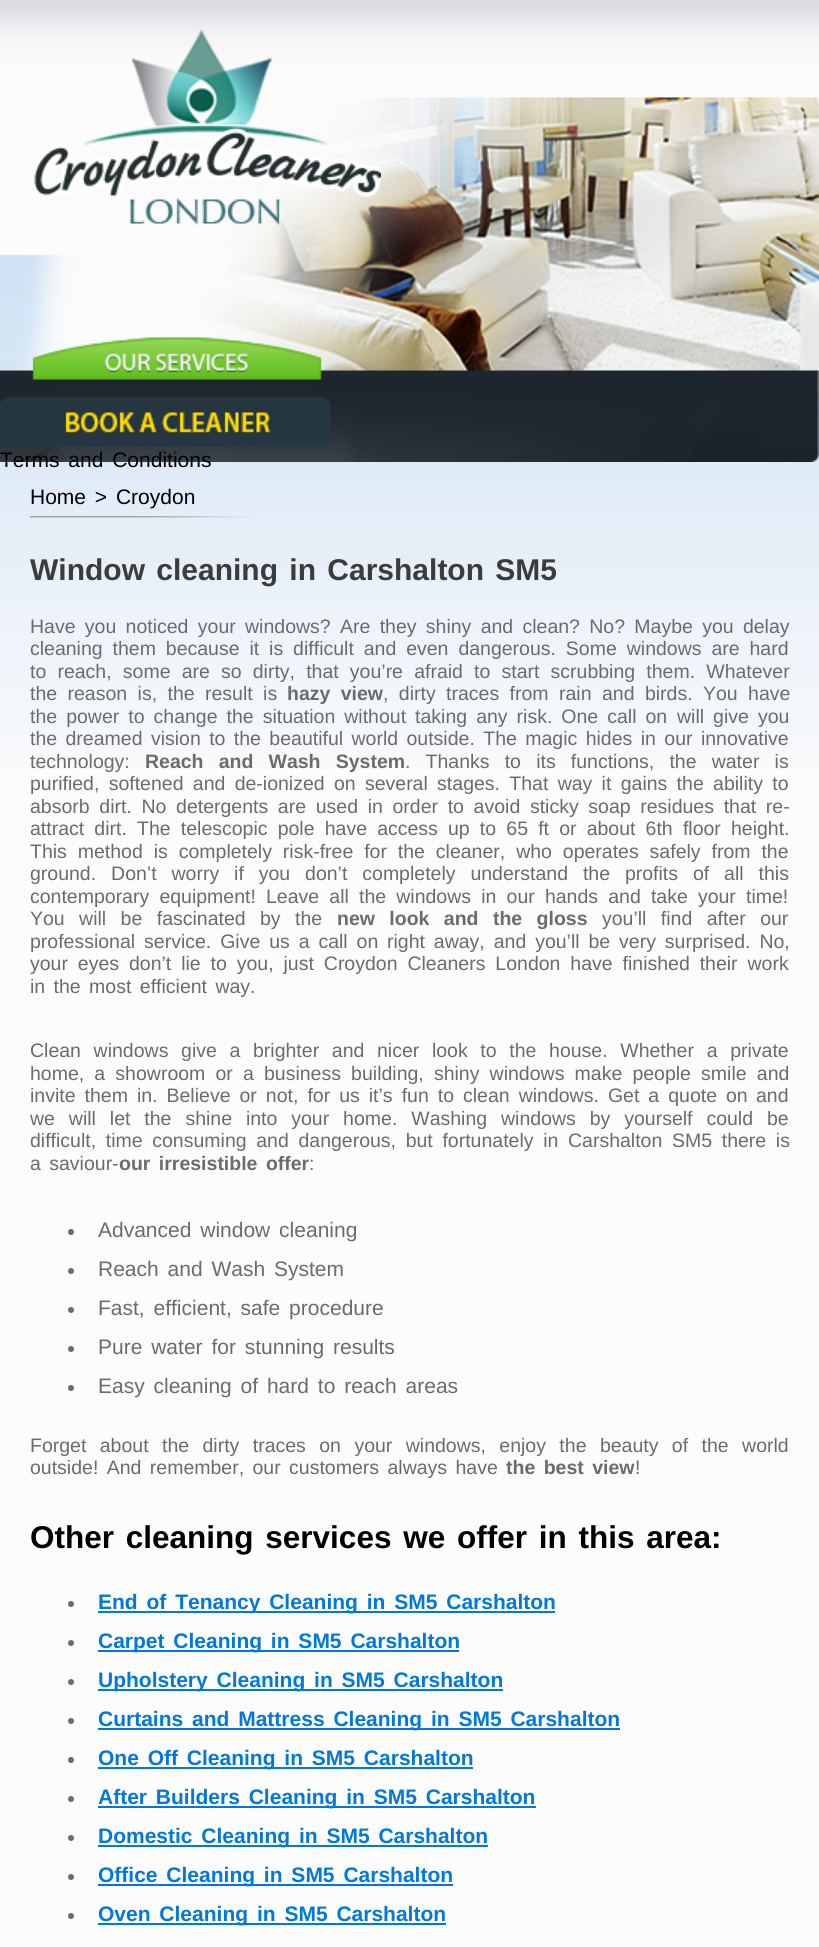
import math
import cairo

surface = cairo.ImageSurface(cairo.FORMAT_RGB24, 819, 1947)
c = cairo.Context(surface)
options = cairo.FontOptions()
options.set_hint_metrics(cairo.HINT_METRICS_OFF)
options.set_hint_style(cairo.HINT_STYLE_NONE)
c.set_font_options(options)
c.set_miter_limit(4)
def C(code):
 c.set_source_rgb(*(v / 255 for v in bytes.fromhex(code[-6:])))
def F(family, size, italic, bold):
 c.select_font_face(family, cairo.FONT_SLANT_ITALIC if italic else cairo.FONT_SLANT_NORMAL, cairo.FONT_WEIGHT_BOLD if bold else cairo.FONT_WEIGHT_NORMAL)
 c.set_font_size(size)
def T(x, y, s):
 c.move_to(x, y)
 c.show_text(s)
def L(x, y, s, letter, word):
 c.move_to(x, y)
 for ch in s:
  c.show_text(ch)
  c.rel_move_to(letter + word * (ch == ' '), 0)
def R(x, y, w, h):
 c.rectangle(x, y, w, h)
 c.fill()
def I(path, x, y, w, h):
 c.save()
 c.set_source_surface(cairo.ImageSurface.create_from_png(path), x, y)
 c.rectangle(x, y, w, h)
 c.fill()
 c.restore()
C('fcfcfc')
c.paint()
I('1.png',0,0,819,769)
I('2.png',15,97,804,301)
I('3.png',34,30,347,195)
I('4.png',0,370,819,92)
I('5.png',32,337,290,43)
I('6.png',0,397,330,50)
F('Liberation Sans',21,0,0)
C('000000')
L(0,467,'Terms and Conditions',0,3)
I('7.png',30,516,221,2)
L(30,504,'Home > Croydon',0,3)
F('Liberation Sans',30,0,1)
C('3c3c3c')
L(30,580,'Window cleaning in Carshalton SM5',0,3)
F('Liberation Sans',19.5,0,0)
C('6b6b6b')
L(30,633,'Have you noticed your windows? Are they shiny and clean? No? Maybe you delay',0,3.9)
L(30,655,'cleaning them because it is difficult and even dangerous. Some windows are hard',0,4.5)
L(30,678,'to reach, some are so dirty, that you’re afraid to start scrubbing them. Whatever',0,5.75)
L(30,700,'the reason is, the result is',0,5)
F('Liberation Sans',19.5,0,1)
L(287,700,'hazy view',0,5)
F('Liberation Sans',19.5,0,0)
L(383,700,', dirty traces from rain and birds. You have',0,5)
L(30,723,'the power to change the situation without taking any risk. One call on',0,3.6)
L(677,723,'will give you',0,3.6)
L(30,745,'the dreamed vision to the beautiful world outside. The magic hides in our innovative',0,3)
T(30,768,'technology:')
F('Liberation Sans',19.5,0,1)
L(145,768,'Reach and Wash System',0,9.75)
F('Liberation Sans',19.5,0,0)
L(405,768,'. Thanks to its functions, the water is',0,9.75)
L(30,790,'purified, softened and de-ionized on several stages. That way it gains the ability to',0,3.9)
L(30,813,'absorb dirt. No detergents are used in order to avoid sticky soap residues that re-',0,4.25)
L(30,835,'attract dirt. The telescopic pole have access up to 65 ft or about 6th floor height.',0,4.75)
L(30,858,'This method is completely risk-free for the cleaner, who operates safely from the',0,5.5)
L(30,880,'ground. Don’t worry if you don’t completely understand the profits of all this',0,9.5)
L(30,903,'contemporary equipment! Leave all the windows in our hands and take your time!',0,4.75)
L(30,925,'You will be fascinated by the',0,9)
F('Liberation Sans',19.5,0,1)
L(337,925,'new look and the gloss',0,9)
F('Liberation Sans',19.5,0,0)
L(602,925,'you’ll find after our',0,9)
L(30,948,'professional service. Give us a call on',0,3.5)
L(387,948,'right away, and you’ll be very surprised. No,',0,3.5)
L(30,970,'your eyes don’t lie to you, just Croydon Cleaners London have finished their work',0,4.5)
L(30,993,'in the most efficient way.',0,3)
L(30,1057,'Clean windows give a brighter and nicer look to the house. Whether a private',0,7.25)
L(30,1080,'home, a showroom or a business building, shiny windows make people smile and',0,4.75)
L(30,1102,'invite them in. Believe or not, for us it’s fun to clean windows. Get a quote on',0,3.6)
T(756,1102,'and')
L(30,1125,'we will let the shine into your home. Washing windows by yourself could be',0,8.5)
L(30,1147,'difficult, time consuming and dangerous, but fortunately in Carshalton SM5 there is',0,4.25)
L(30,1170,'a saviour-',0,3)
F('Liberation Sans',19.5,0,1)
L(119,1170,'our irresistible offer',0,3)
F('Liberation Sans',19.5,0,0)
T(309,1170,':')
c.new_path()
c.arc(71,1232,3,0,2 * math.pi)
c.fill()
F('Liberation Sans',21,0,0)
L(98,1237,'Advanced window cleaning',0,3)
c.new_path()
c.arc(71,1271,3,0,2 * math.pi)
c.fill()
L(98,1276,'Reach and Wash System',0,3)
c.new_path()
c.arc(71,1310,3,0,2 * math.pi)
c.fill()
L(98,1315,'Fast, efficient, safe procedure',0,3)
c.new_path()
c.arc(71,1349,3,0,2 * math.pi)
c.fill()
L(98,1354,'Pure water for stunning results',0,3)
c.new_path()
c.arc(71,1388,3,0,2 * math.pi)
c.fill()
L(98,1393,'Easy cleaning of hard to reach areas',0,3)
F('Liberation Sans',19.5,0,0)
L(30,1452,'Forget about the dirty traces on your windows, enjoy the beauty of the world',0,8)
L(30,1474,'outside! And remember, our customers always have',0,3)
F('Liberation Sans',19.5,0,1)
L(506,1474,'the best view',0,3)
F('Liberation Sans',19.5,0,0)
T(635,1474,'!')
F('Liberation Sans',31.5,0,1)
C('000000')
L(30,1548,'Other cleaning services we offer in this area:',0,3)
C('6b6b6b')
c.new_path()
c.arc(71,1604,3,0,2 * math.pi)
c.fill()
C('0078de')
R(98,1611,457,2)
F('Liberation Sans',21,0,1)
L(98,1609,'End of Tenancy Cleaning in SM5 Carshalton',0,3)
C('6b6b6b')
c.new_path()
c.arc(71,1643,3,0,2 * math.pi)
c.fill()
C('0078de')
R(98,1650,361,2)
L(98,1648,'Carpet Cleaning in SM5 Carshalton',0,3)
C('6b6b6b')
c.new_path()
c.arc(71,1682,3,0,2 * math.pi)
c.fill()
C('0078de')
R(98,1689,405,2)
L(98,1687,'Upholstery Cleaning in SM5 Carshalton',0,3)
C('6b6b6b')
c.new_path()
c.arc(71,1721,3,0,2 * math.pi)
c.fill()
C('0078de')
R(98,1728,522,2)
L(98,1726,'Curtains and Mattress Cleaning in SM5 Carshalton',0,3)
C('6b6b6b')
c.new_path()
c.arc(71,1760,3,0,2 * math.pi)
c.fill()
C('0078de')
R(98,1767,375,2)
L(98,1765,'One Off Cleaning in SM5 Carshalton',0,3)
C('6b6b6b')
c.new_path()
c.arc(71,1799,3,0,2 * math.pi)
c.fill()
C('0078de')
R(98,1806,438,2)
L(98,1804,'After Builders Cleaning in SM5 Carshalton',0,3)
C('6b6b6b')
c.new_path()
c.arc(71,1838,3,0,2 * math.pi)
c.fill()
C('0078de')
R(98,1845,390,2)
L(98,1843,'Domestic Cleaning in SM5 Carshalton',0,3)
C('6b6b6b')
c.new_path()
c.arc(71,1877,3,0,2 * math.pi)
c.fill()
C('0078de')
R(98,1884,355,2)
L(98,1882,'Office Cleaning in SM5 Carshalton',0,3)
C('6b6b6b')
c.new_path()
c.arc(71,1916,3,0,2 * math.pi)
c.fill()
C('0078de')
R(98,1923,348,2)
L(98,1921,'Oven Cleaning in SM5 Carshalton',0,3)
surface.write_to_png('o.png')
